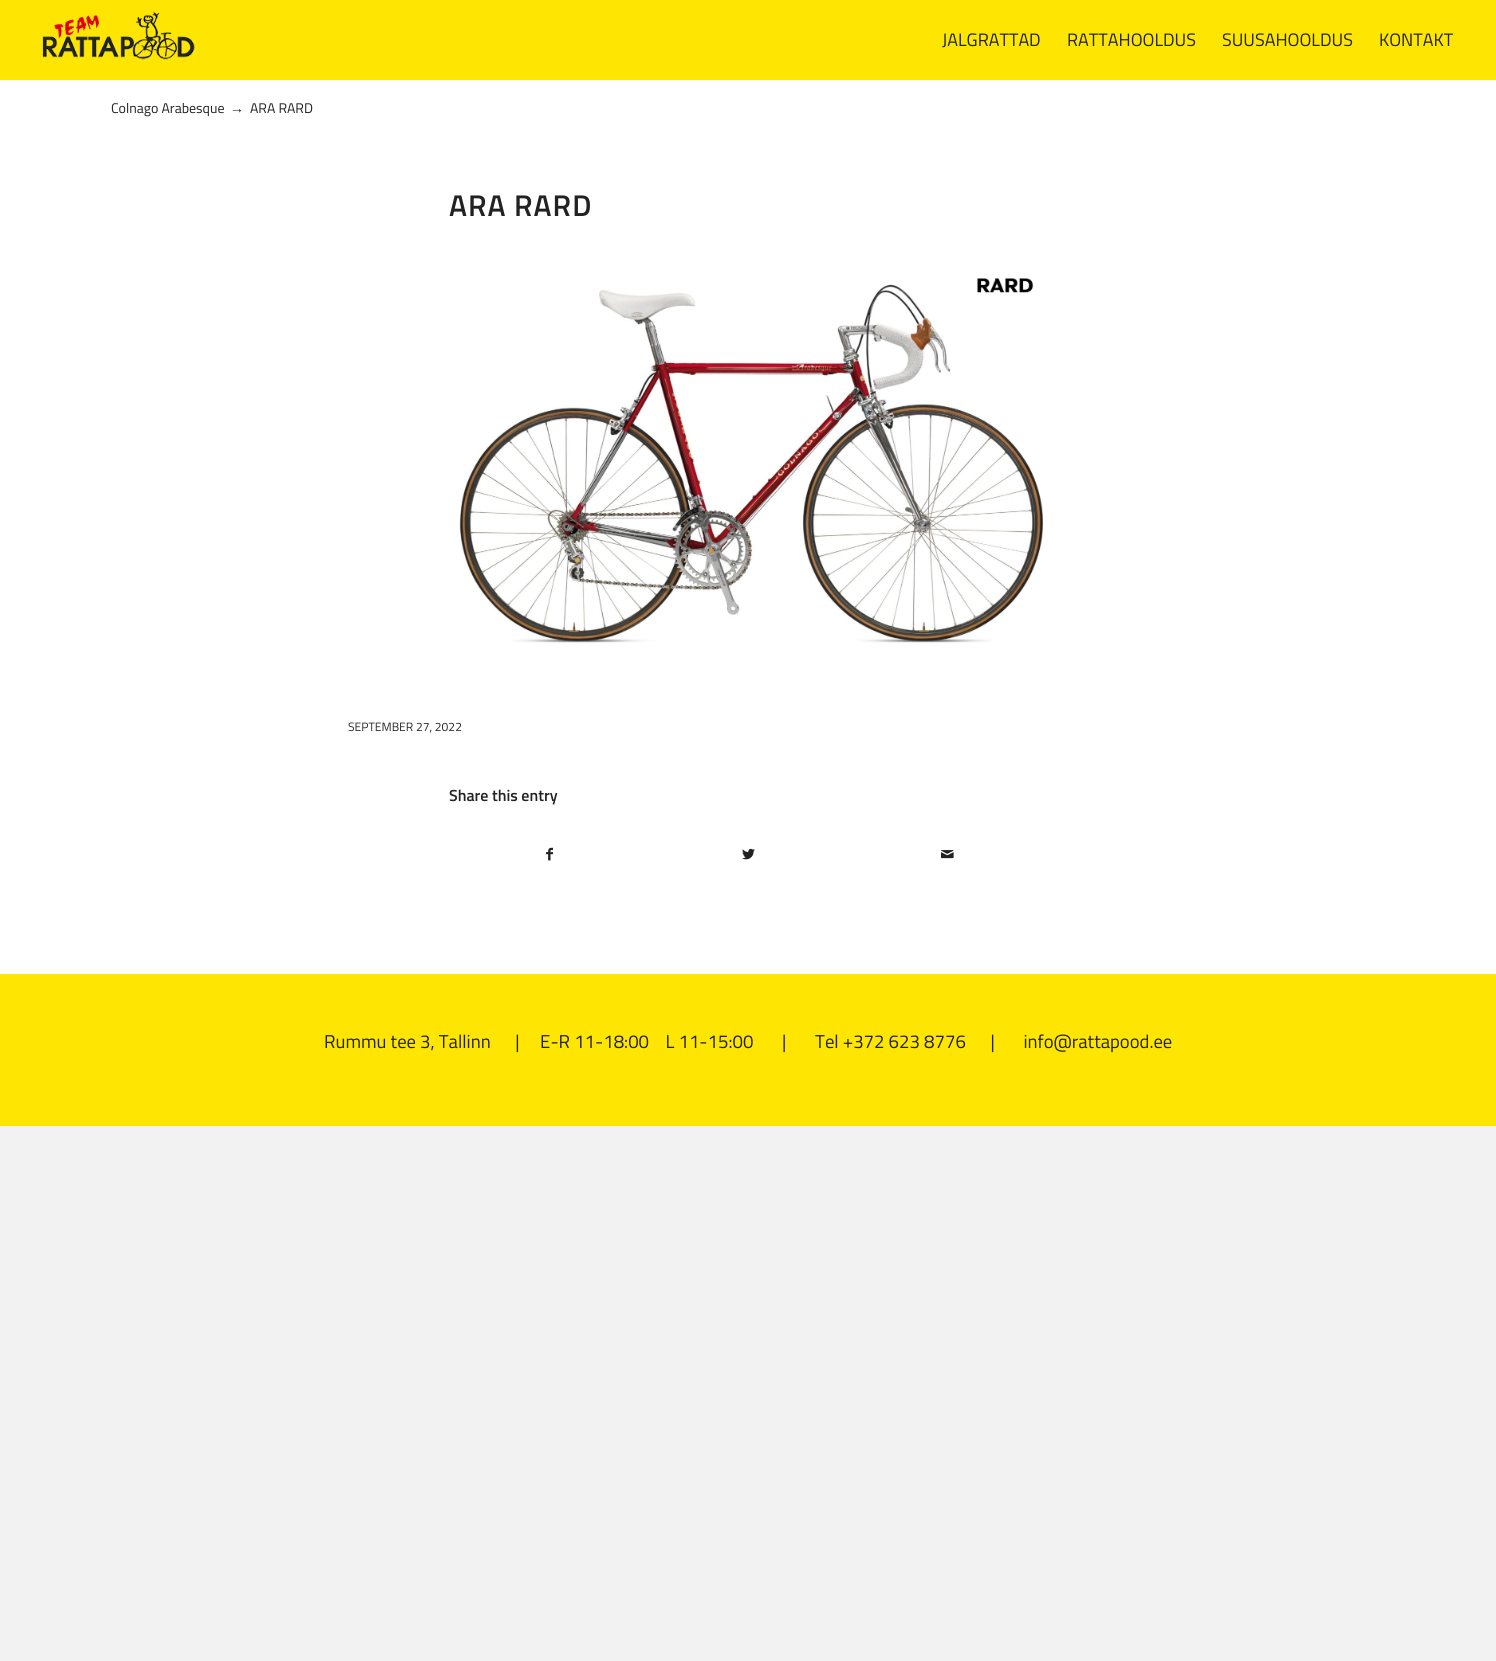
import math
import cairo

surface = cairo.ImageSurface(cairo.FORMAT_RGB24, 1496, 1661)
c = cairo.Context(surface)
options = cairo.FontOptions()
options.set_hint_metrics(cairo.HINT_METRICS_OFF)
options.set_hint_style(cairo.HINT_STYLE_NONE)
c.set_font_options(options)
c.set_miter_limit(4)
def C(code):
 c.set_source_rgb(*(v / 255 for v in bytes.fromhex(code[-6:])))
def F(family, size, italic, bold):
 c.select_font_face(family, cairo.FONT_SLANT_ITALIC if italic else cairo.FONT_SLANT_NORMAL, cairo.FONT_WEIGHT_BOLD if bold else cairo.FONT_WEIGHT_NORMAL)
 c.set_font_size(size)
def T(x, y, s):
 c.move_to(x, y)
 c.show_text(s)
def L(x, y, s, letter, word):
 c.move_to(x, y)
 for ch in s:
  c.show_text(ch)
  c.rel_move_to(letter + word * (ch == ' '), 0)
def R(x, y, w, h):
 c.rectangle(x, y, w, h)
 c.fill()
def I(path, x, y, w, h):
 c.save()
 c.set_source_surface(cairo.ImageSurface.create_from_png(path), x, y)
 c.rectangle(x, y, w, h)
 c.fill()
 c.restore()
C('f2f2f2')
c.paint()
C('ffe602')
R(0,0,1496,80)
I('1.png',42,11,153,49)
F('Titillium Web',18,0,0)
C('222222')
T(942,46,'JALGRATTAD')
T(1067,46,'RATTAHOOLDUS')
T(1222,46,'SUUSAHOOLDUS')
T(1379,46,'KONTAKT')
C('ffe602')
R(0,974,1496,152)
C('ffffff')
R(0,80,1496,894)
F('Titillium Web',14,0,0)
C('222222')
T(111,113,'Colnago Arabesque')
F('Liberation Sans',14,0,0)
T(230,113,'→')
F('Titillium Web',14,0,0)
T(250,113,'ARA RARD')
F('Titillium Web SemiBold',30,0,0)
L(449,216,'ARA RARD',1,0)
I('2.png',459,278,585,365)
F('Titillium Web',12.1,0,0)
C('282828')
T(348,731,'SEPTEMBER 27, 2022')
F('Titillium Web SemiBold',16,0,0)
C('222222')
T(449,801,'Share this entry')
I('3.png',546,847,7,14)
I('4.png',742,848,13,12)
I('5.png',941,850,13,9)
F('Titillium Web',18.65,0,0)
T(324,1048,'Rummu tee 3, Tallinn      |     E-R 11-18:00    L 11-15:00       |       Tel +372 623 8776      |       info@rattapood.ee')
surface.write_to_png('o.png')
